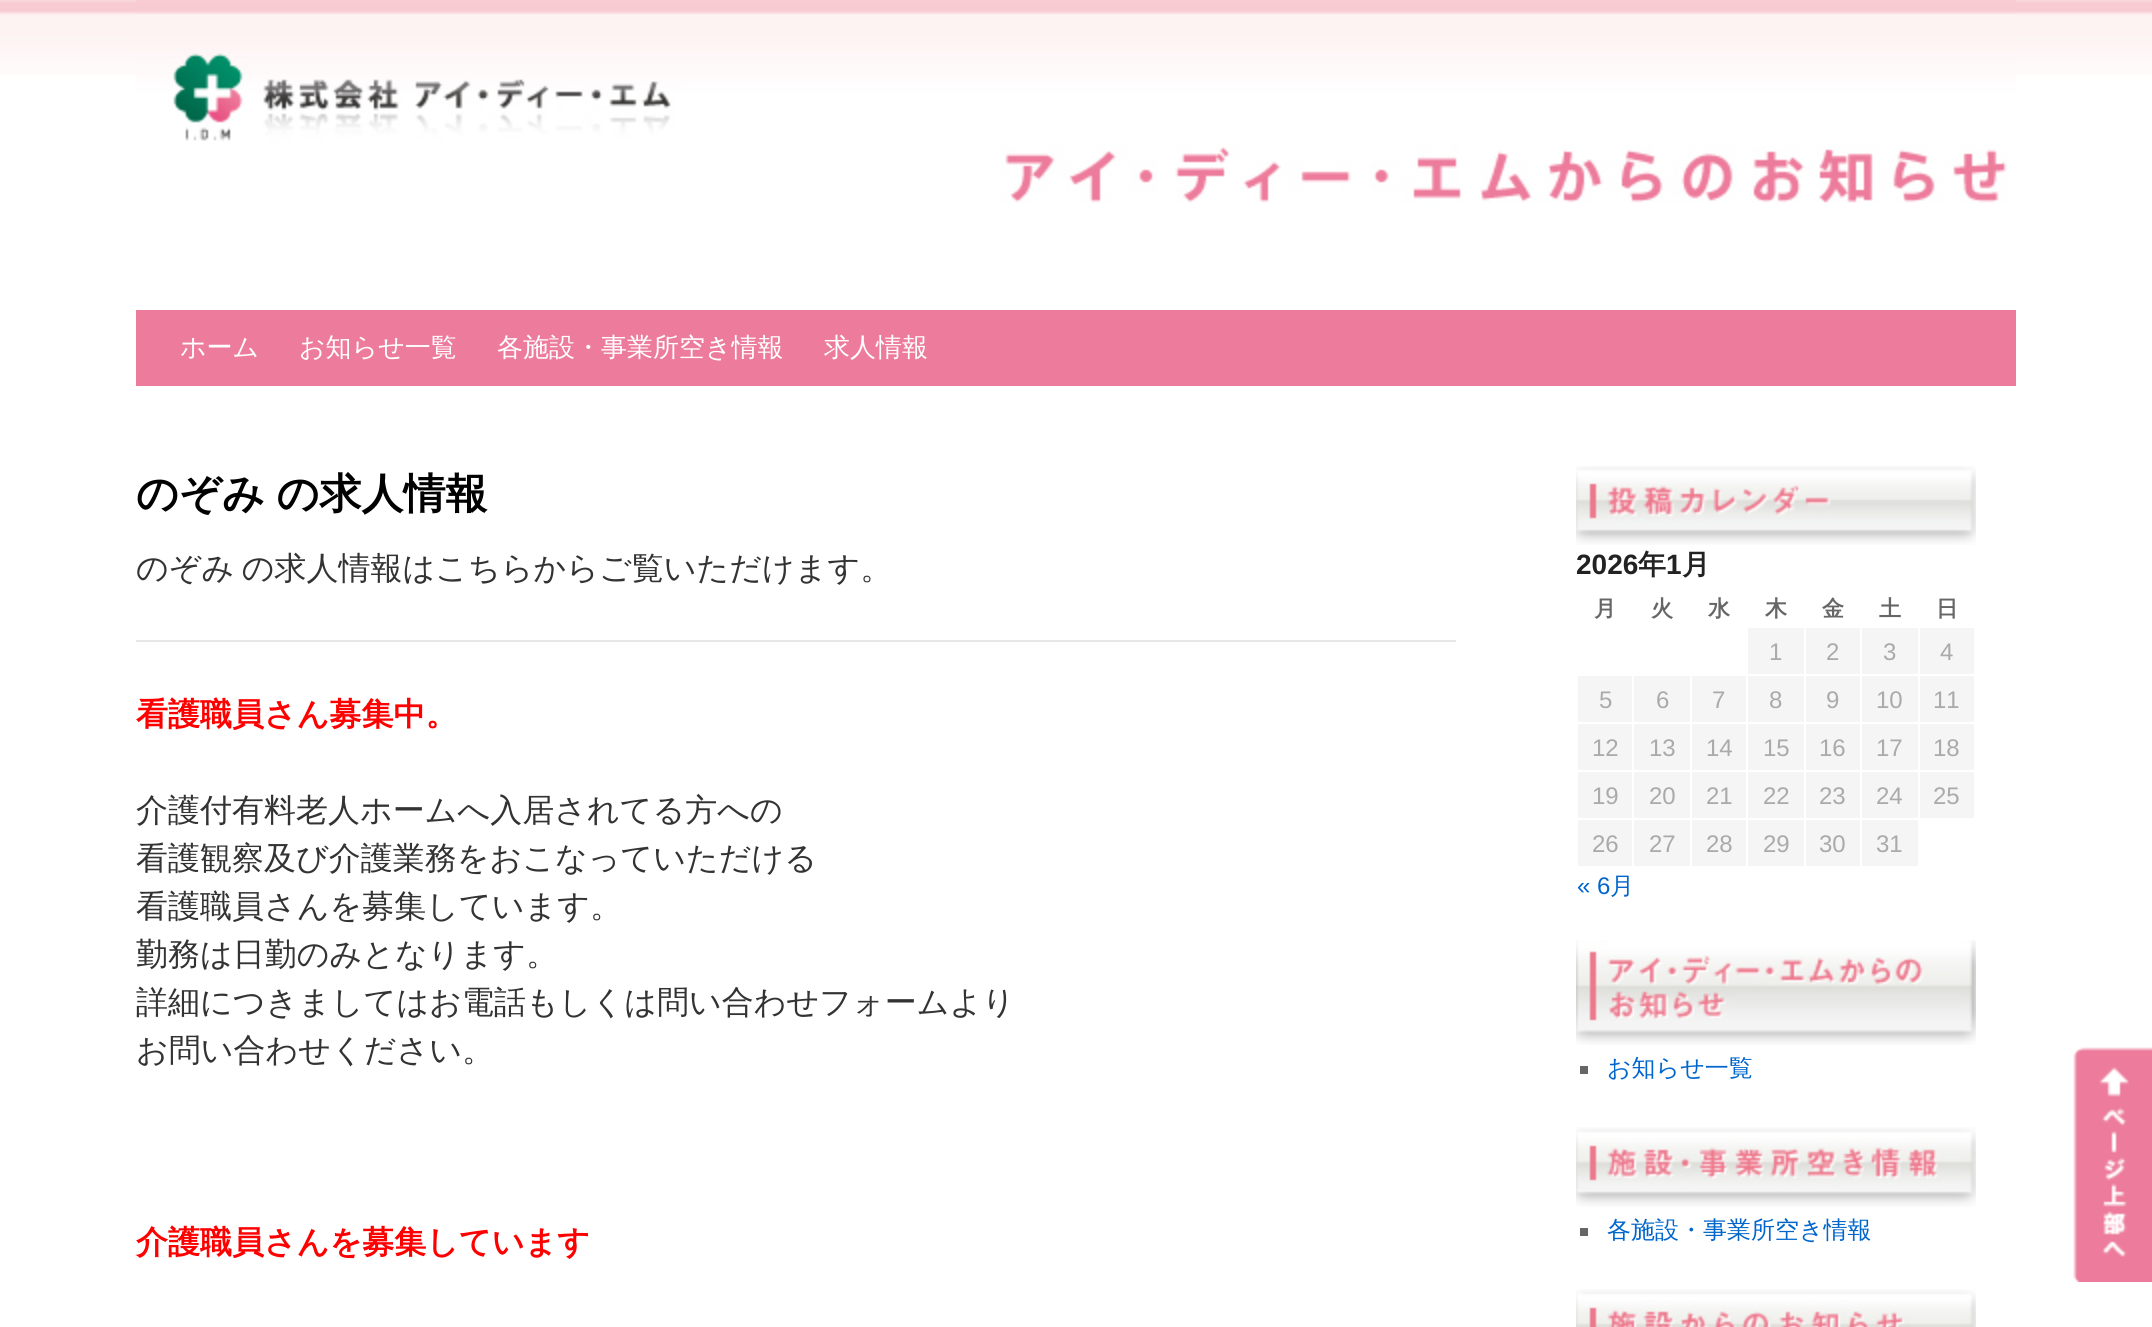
import math
import cairo

surface = cairo.ImageSurface(cairo.FORMAT_RGB24, 2152, 1327)
c = cairo.Context(surface)
options = cairo.FontOptions()
options.set_hint_metrics(cairo.HINT_METRICS_OFF)
options.set_hint_style(cairo.HINT_STYLE_NONE)
c.set_font_options(options)
c.set_miter_limit(4)
def C(code):
 c.set_source_rgb(*(v / 255 for v in bytes.fromhex(code[-6:])))
def F(family, size, italic, bold):
 c.select_font_face(family, cairo.FONT_SLANT_ITALIC if italic else cairo.FONT_SLANT_NORMAL, cairo.FONT_WEIGHT_BOLD if bold else cairo.FONT_WEIGHT_NORMAL)
 c.set_font_size(size)
def T(x, y, s):
 c.move_to(x, y)
 c.show_text(s)
def L(x, y, s, letter, word):
 c.move_to(x, y)
 for ch in s:
  c.show_text(ch)
  c.rel_move_to(letter + word * (ch == ' '), 0)
def R(x, y, w, h):
 c.rectangle(x, y, w, h)
 c.fill()
def I(path, x, y, w, h):
 c.save()
 c.set_source_surface(cairo.ImageSurface.create_from_png(path), x, y)
 c.rectangle(x, y, w, h)
 c.fill()
 c.restore()
C('ffffff')
c.paint()
I('1.png',0,0,2152,75)
I('2.png',136,0,1880,203)
C('ed7c9c')
R(136,310,1880,76)
F('WenQuanYi Zen Hei Medium',26,0,0)
C('ffffff')
T(180,356,'ホーム')
T(299,356,'お知らせ一覧')
T(497,356,'各施設・事業所空き情報')
T(824,356,'求人情報')
F('WenQuanYi Zen Hei',42,0,1)
C('000000')
L(136,508,'のぞみ の求人情報',0,-1)
F('WenQuanYi Zen Hei Medium',32,0,0)
C('333333')
L(136,579,'のぞみ の求人情報はこちらからご覧いただけます。',0,-2)
C('e7e7e7')
R(136,640,1320,2)
F('WenQuanYi Zen Hei',32,0,1)
C('ff0000')
T(136,725,'看護職員さん募集中。')
F('WenQuanYi Zen Hei Medium',32,0,0)
C('333333')
T(136,821,'介護付有料老人ホームへ入居されてる方への')
T(136,869,'看護観察及び介護業務をおこなっていただける')
T(136,917,'看護職員さんを募集しています。')
T(136,965,'勤務は日勤のみとなります。')
T(136,1013,'詳細につきましてはお電話もしくは問い合わせフォームより')
T(136,1061,'お問い合わせください。')
F('WenQuanYi Zen Hei',32,0,1)
C('ff0000')
T(136,1253,'介護職員さんを募集しています')
I('3.png',1576,466,400,79)
F('Liberation Sans',28,0,1)
C('222222')
T(1576,574,'2026')
F('WenQuanYi Zen Hei',28,0,1)
T(1638,574,'年')
F('Liberation Sans',28,0,1)
T(1666,574,'1')
F('WenQuanYi Zen Hei',28,0,1)
T(1682,574,'月')
F('WenQuanYi Zen Hei',22,0,1)
C('666666')
T(1594,616,'月')
T(1651,616,'火')
T(1708,616,'水')
T(1765,616,'木')
T(1822,616,'金')
T(1879,616,'土')
T(1936,616,'日')
C('f5f5f5')
R(1748,628,56,46)
F('Liberation Sans',24,0,0)
C('aaaaaa')
T(1769,660,'1')
C('f5f5f5')
R(1806,628,54,46)
C('aaaaaa')
T(1826,660,'2')
C('f5f5f5')
R(1862,628,56,46)
C('aaaaaa')
T(1883,660,'3')
C('f5f5f5')
R(1920,628,54,46)
C('aaaaaa')
T(1940,660,'4')
C('f5f5f5')
R(1578,676,54,46)
C('aaaaaa')
T(1599,708,'5')
C('f5f5f5')
R(1634,676,56,46)
C('aaaaaa')
T(1656,708,'6')
C('f5f5f5')
R(1692,676,54,46)
C('aaaaaa')
T(1712,708,'7')
C('f5f5f5')
R(1748,676,56,46)
C('aaaaaa')
T(1769,708,'8')
C('f5f5f5')
R(1806,676,54,46)
C('aaaaaa')
T(1826,708,'9')
C('f5f5f5')
R(1862,676,56,46)
C('aaaaaa')
T(1876,708,'10')
C('f5f5f5')
R(1920,676,54,46)
C('aaaaaa')
T(1933,708,'11')
C('f5f5f5')
R(1578,724,54,46)
C('aaaaaa')
T(1592,756,'12')
C('f5f5f5')
R(1634,724,56,46)
C('aaaaaa')
T(1649,756,'13')
C('f5f5f5')
R(1692,724,54,46)
C('aaaaaa')
T(1706,756,'14')
C('f5f5f5')
R(1748,724,56,46)
C('aaaaaa')
T(1763,756,'15')
C('f5f5f5')
R(1806,724,54,46)
C('aaaaaa')
T(1819,756,'16')
C('f5f5f5')
R(1862,724,56,46)
C('aaaaaa')
T(1876,756,'17')
C('f5f5f5')
R(1920,724,54,46)
C('aaaaaa')
T(1933,756,'18')
C('f5f5f5')
R(1578,772,54,46)
C('aaaaaa')
T(1592,804,'19')
C('f5f5f5')
R(1634,772,56,46)
C('aaaaaa')
T(1649,804,'20')
C('f5f5f5')
R(1692,772,54,46)
C('aaaaaa')
T(1706,804,'21')
C('f5f5f5')
R(1748,772,56,46)
C('aaaaaa')
T(1763,804,'22')
C('f5f5f5')
R(1806,772,54,46)
C('aaaaaa')
T(1819,804,'23')
C('f5f5f5')
R(1862,772,56,46)
C('aaaaaa')
T(1876,804,'24')
C('f5f5f5')
R(1920,772,54,46)
C('aaaaaa')
T(1933,804,'25')
C('f5f5f5')
R(1578,820,54,46)
C('aaaaaa')
T(1592,852,'26')
C('f5f5f5')
R(1634,820,56,46)
C('aaaaaa')
T(1649,852,'27')
C('f5f5f5')
R(1692,820,54,46)
C('aaaaaa')
T(1706,852,'28')
C('f5f5f5')
R(1748,820,56,46)
C('aaaaaa')
T(1763,852,'29')
C('f5f5f5')
R(1806,820,54,46)
C('aaaaaa')
T(1819,852,'30')
C('f5f5f5')
R(1862,820,56,46)
C('aaaaaa')
T(1876,852,'31')
C('0066cc')
T(1577,894,'« 6')
F('WenQuanYi Zen Hei Medium',24,0,0)
T(1610,894,'月')
I('4.png',1576,940,400,105)
C('666666')
R(1580,1066,8,8)
C('0066cc')
T(1607,1076,'お知らせ一覧')
I('5.png',1576,1127,400,80)
C('666666')
R(1580,1228,8,8)
C('0066cc')
T(1607,1238,'各施設・事業所空き情報')
I('6.png',1576,1289,400,38)
I('7.png',2073,1047,79,235)
surface.write_to_png('o.png')
